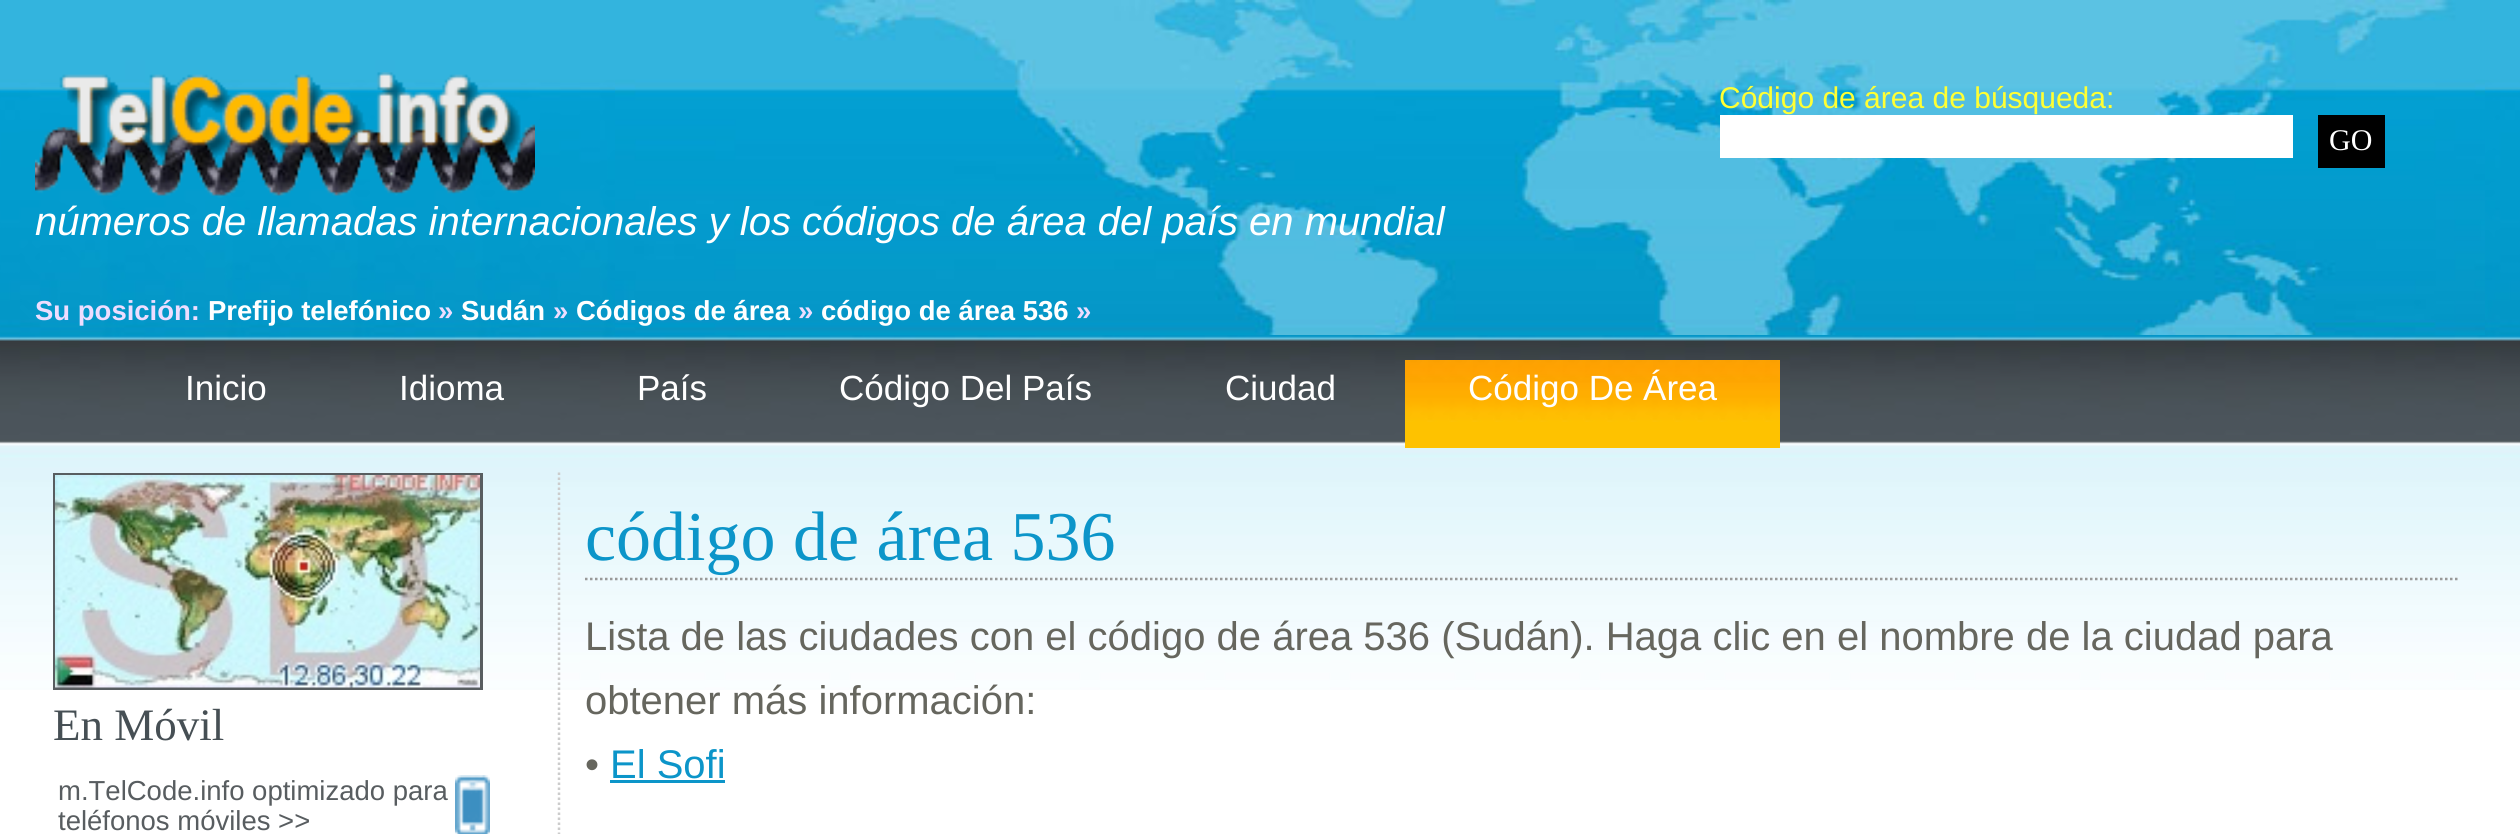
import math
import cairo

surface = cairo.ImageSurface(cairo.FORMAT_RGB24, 2520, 834)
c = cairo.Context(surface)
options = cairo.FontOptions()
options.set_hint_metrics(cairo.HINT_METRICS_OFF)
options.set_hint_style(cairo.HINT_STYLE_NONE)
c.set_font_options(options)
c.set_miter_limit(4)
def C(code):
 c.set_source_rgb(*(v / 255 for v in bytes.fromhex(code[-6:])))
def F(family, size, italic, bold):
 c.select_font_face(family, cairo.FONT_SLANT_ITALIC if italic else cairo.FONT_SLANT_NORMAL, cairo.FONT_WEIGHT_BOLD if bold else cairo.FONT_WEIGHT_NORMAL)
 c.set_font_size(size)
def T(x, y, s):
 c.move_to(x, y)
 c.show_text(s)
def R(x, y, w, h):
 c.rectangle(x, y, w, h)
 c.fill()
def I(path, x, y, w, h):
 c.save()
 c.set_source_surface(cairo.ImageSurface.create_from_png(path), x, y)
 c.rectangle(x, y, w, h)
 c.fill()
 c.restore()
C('ffffff')
c.paint()
I('1.png',0,0,2520,690)
I('2.png',615,0,1870,335)
F('Liberation Sans',30,0,0)
C('ffff33')
T(1719,108,'Código de área de búsqueda:')
C('ffffff')
R(1720,115,573,43)
C('000000')
R(2318,115,67,53)
F('Liberation Serif',30,0,0)
C('ffffff')
T(2329,150,'GO')
I('3.png',35,72,500,126)
F('Liberation Sans',40,1,0)
T(35,235,'números de llamadas internacionales y los códigos de área del país en mundial')
F('Liberation Sans',27.5,0,1)
C('eeddff')
T(35,320,'Su posición:')
C('ffffff')
T(208,320,'Prefijo telefónico')
C('eeddff')
T(438,320,'»')
C('ffffff')
T(461,320,'Sudán')
C('eeddff')
T(553,320,'»')
C('ffffff')
T(576,320,'Códigos de área')
C('eeddff')
T(798,320,'»')
C('ffffff')
T(821,320,'código de área 536')
C('eeddff')
T(1076,320,'»')
F('Liberation Sans',35,0,0)
C('ffffff')
T(185,400,'Inicio')
T(399,400,'Idioma')
T(637,400,'País')
T(839,400,'Código Del País')
T(1225,400,'Ciudad')
C('fec200')
R(1405,422,375,26)
I('4.png',1405,360,375,62)
C('ffffff')
T(1468,400,'Código De Área')
c.rectangle(54.5,474.5,427,214)
C('585d60')
c.set_line_width(3)
c.stroke()
I('5.png',55,475,425,213)
F('Liberation Serif',45,0,0)
C('464f54')
T(53,740,'En Móvil')
F('Liberation Sans',27.5,0,0)
C('585d60')
T(58,800,'m.TelCode.info optimizado para')
I('6.png',455,775,35,59)
T(58,830,'teléfonos móviles >>')
c.new_path()
c.move_to(559,472.5)
c.line_to(559,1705)
C('cccccc')
c.set_line_width(2.5)
c.set_dash([2.5,2.5])
c.stroke()
c.new_path()
c.move_to(585,579)
c.line_to(2460,579)
C('999999')
c.stroke()
F('Liberation Serif',70,0,0)
C('0c95c9')
T(585,560,'código de área 536')
F('Liberation Sans',40,0,0)
C('66665e')
T(585,650,'Lista de las ciudades con el código de área 536 (Sudán). Haga clic en el nombre de la ciudad para')
T(585,714,'obtener más información:')
T(585,778,'•')
C('0c95c9')
T(610,778,'El Sofi')
R(610,780,115,3)
surface.write_to_png('o.png')
